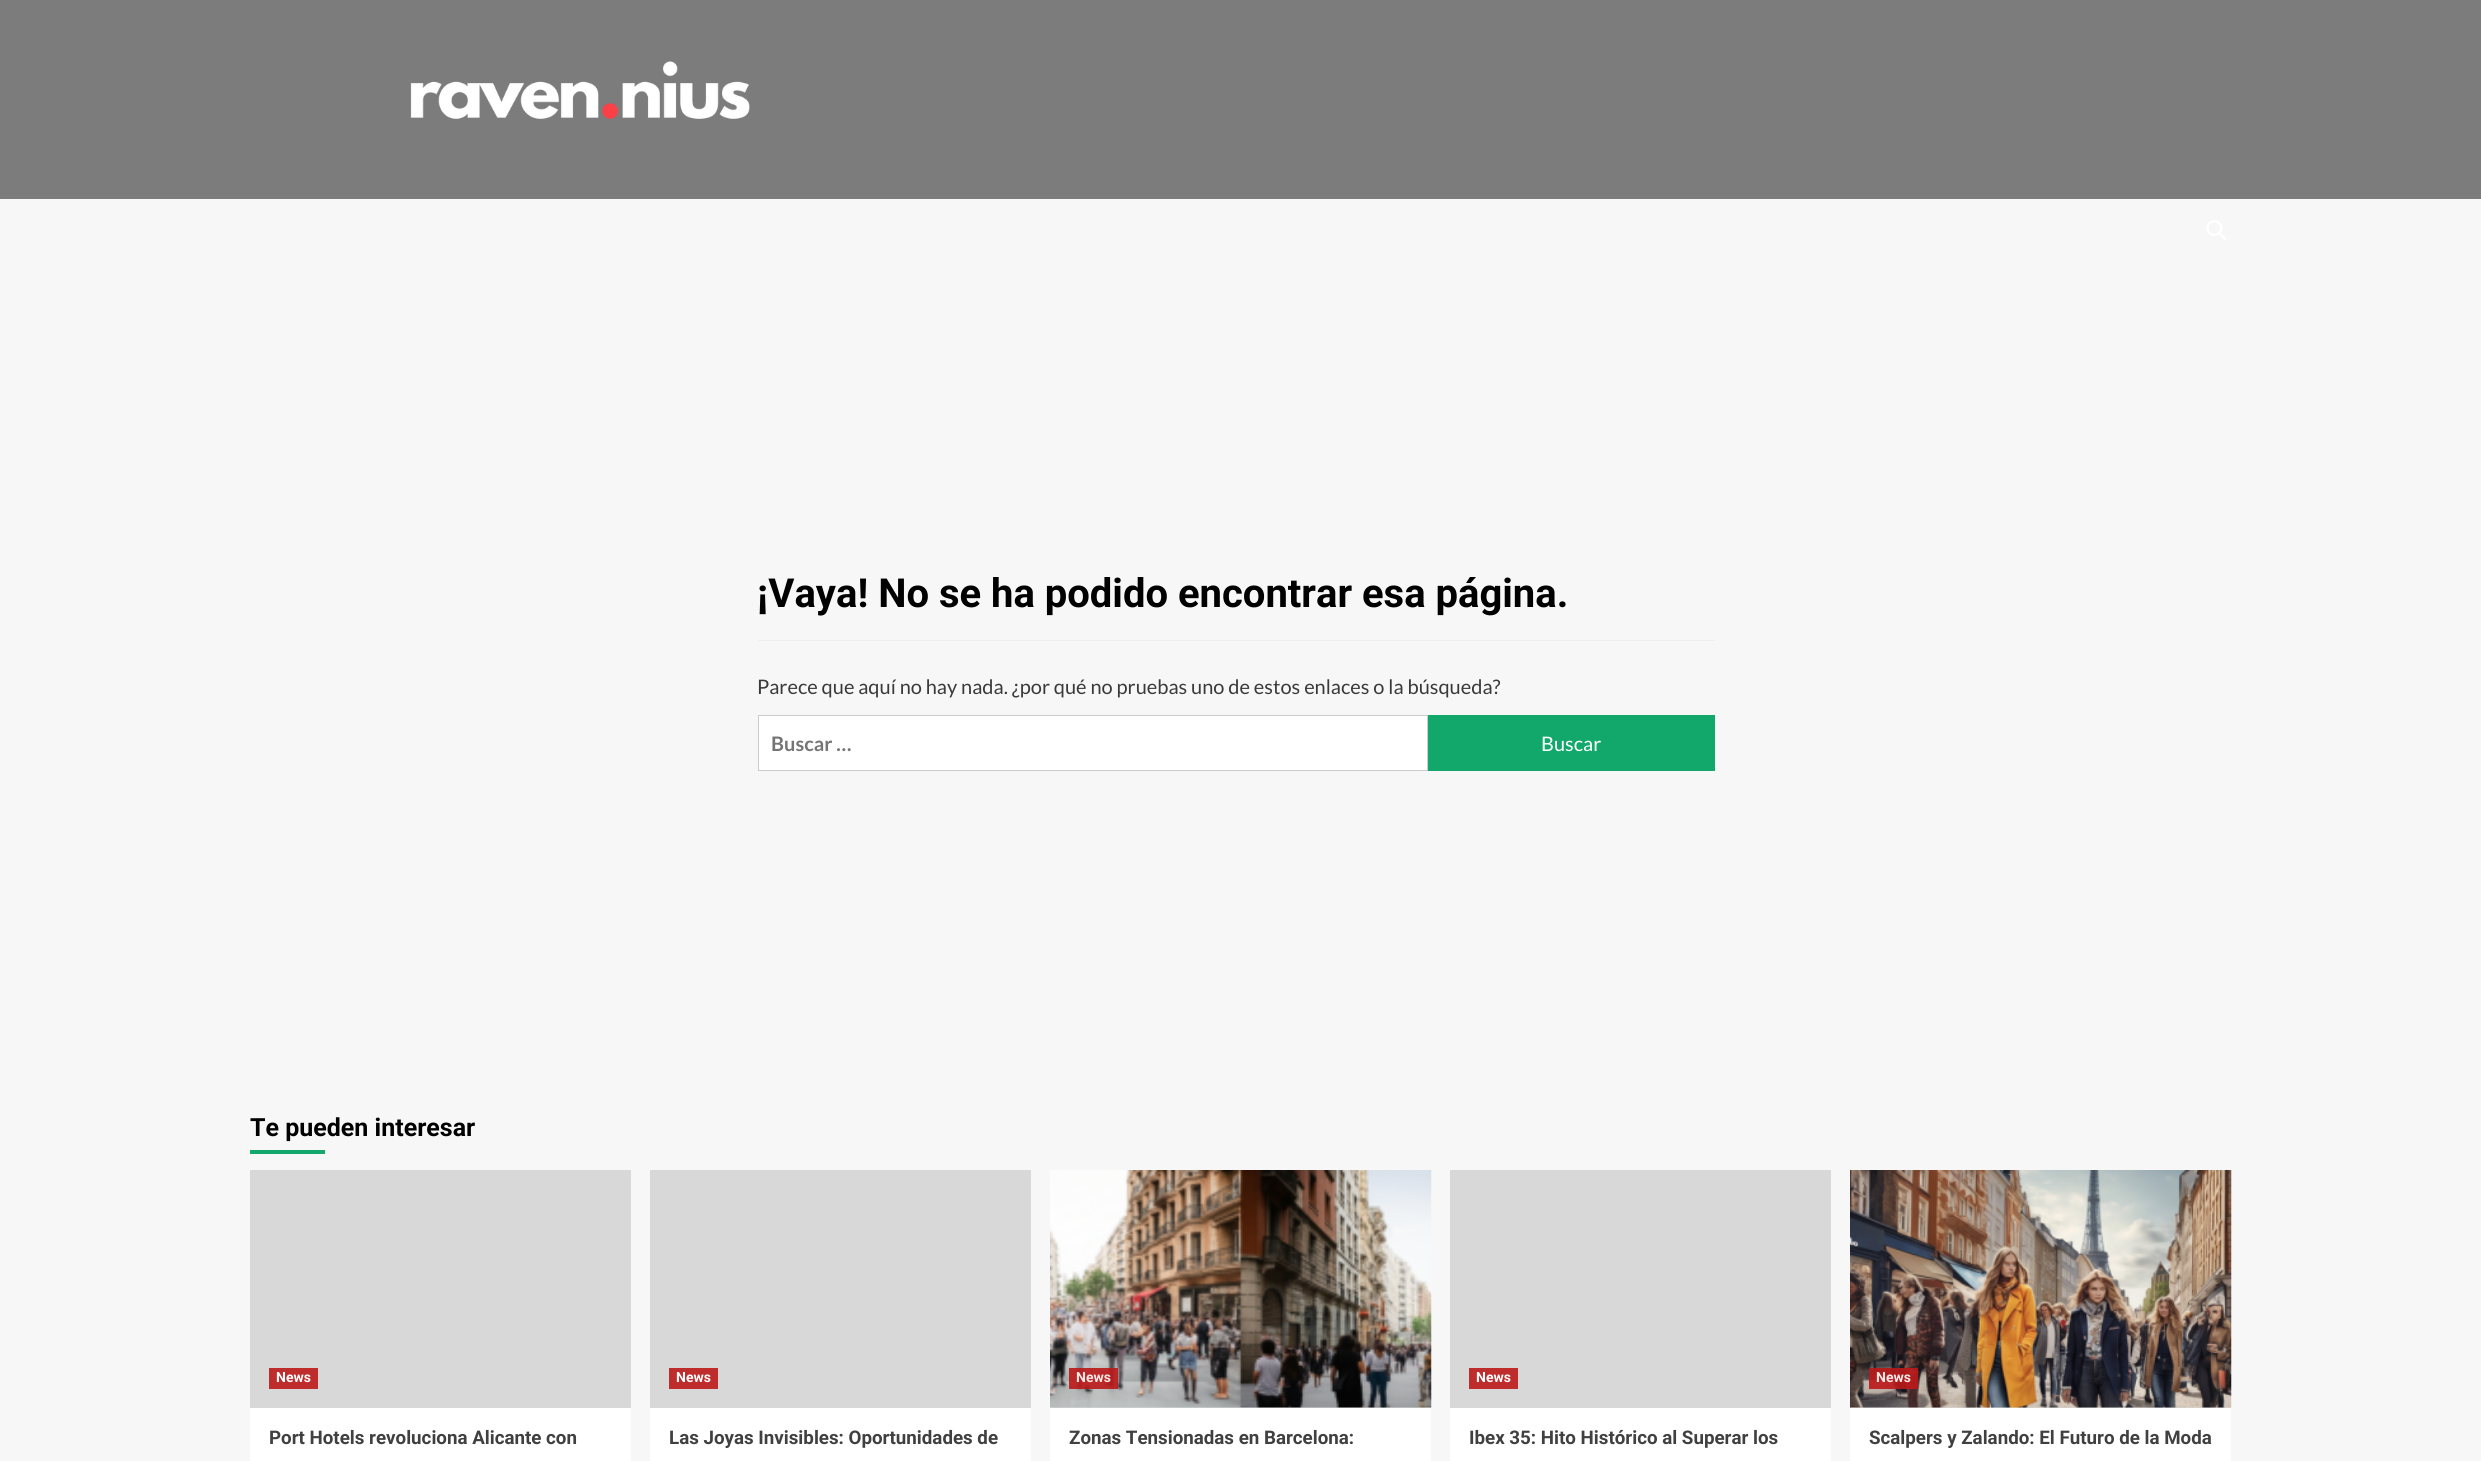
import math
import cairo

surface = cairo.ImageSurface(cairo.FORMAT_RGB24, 2481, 1461)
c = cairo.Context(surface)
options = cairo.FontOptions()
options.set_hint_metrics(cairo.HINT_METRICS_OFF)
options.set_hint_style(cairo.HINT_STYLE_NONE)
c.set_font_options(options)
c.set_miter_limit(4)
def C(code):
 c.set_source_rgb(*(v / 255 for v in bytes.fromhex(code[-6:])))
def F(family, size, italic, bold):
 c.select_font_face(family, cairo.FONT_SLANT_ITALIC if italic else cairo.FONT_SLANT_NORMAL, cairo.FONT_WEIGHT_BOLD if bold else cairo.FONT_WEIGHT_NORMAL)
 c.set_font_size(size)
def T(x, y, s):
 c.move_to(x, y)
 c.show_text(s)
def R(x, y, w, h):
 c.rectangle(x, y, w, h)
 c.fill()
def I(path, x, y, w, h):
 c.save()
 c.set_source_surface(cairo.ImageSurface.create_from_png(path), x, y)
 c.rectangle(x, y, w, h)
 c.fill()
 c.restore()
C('f7f7f7')
c.paint()
C('7c7c7c')
R(0,0,2481,199)
I('1.png',410,61,340,58)
I('2.png',2206,220,20,20)
C('eeeeee')
R(758,640,957,1)
F('Roboto',40,0,1)
C('000000')
T(757,607,'¡Vaya! No se ha podido encontrar esa página.')
F('Lato',20,0,0)
C('3a3a3a')
T(757,694,'Parece que aquí no hay nada. ¿por qué no pruebas uno de estos enlaces o la búsqueda?')
C('ffffff')
c.rectangle(758.5,715.5,669,55)
c.fill_preserve()
C('cccccc')
c.set_line_width(1)
c.stroke()
F('Lato',20,0,1)
C('757575')
T(771,751,'Buscar …')
C('12a86b')
R(1428,715,287,56)
F('Lato',20,0,0)
C('ffffff')
T(1541,751,'Buscar')
F('Roboto',25,0,1)
C('000000')
T(250,1136,'Te pueden interesar')
C('12a86b')
R(250,1150,75,4)
C('ffffff')
R(250,1408,381,53)
C('d8d8d8')
R(250,1170,381,238)
C('be2c2c')
R(269,1368,49,21)
F('Roboto',14,0,1)
C('ffffff')
T(276,1382,'News')
F('Roboto',18.75,0,1)
C('404040')
T(269,1444,'Port Hotels revoluciona Alicante con')
C('ffffff')
R(650,1408,381,53)
C('d8d8d8')
R(650,1170,381,238)
C('be2c2c')
R(669,1368,49,21)
F('Roboto',14,0,1)
C('ffffff')
T(676,1382,'News')
F('Roboto',18.75,0,1)
C('404040')
T(669,1444,'Las Joyas Invisibles: Oportunidades de')
C('ffffff')
R(1050,1408,381,53)
C('d8d8d8')
R(1050,1407,381,1)
I('3.png',1050,1170,382,238)
c.set_source_rgba(0.733,0.098,0.098,0.9)
R(1069,1368,49,21)
F('Roboto',14,0,1)
C('f8e9e9')
T(1076,1382,'News')
F('Roboto',18.75,0,1)
C('404040')
T(1069,1444,'Zonas Tensionadas en Barcelona:')
C('ffffff')
R(1450,1408,381,53)
C('d8d8d8')
R(1450,1170,381,238)
C('be2c2c')
R(1469,1368,49,21)
F('Roboto',14,0,1)
C('ffffff')
T(1476,1382,'News')
F('Roboto',18.75,0,1)
C('404040')
T(1469,1444,'Ibex 35: Hito Histórico al Superar los')
C('ffffff')
R(1850,1408,381,53)
C('d8d8d8')
R(1850,1407,381,1)
I('4.png',1850,1170,382,238)
c.set_source_rgba(0.733,0.098,0.098,0.9)
R(1869,1368,49,21)
F('Roboto',14,0,1)
C('f8e9e9')
T(1876,1382,'News')
F('Roboto',18.75,0,1)
C('404040')
T(1869,1444,'Scalpers y Zalando: El Futuro de la Moda')
surface.write_to_png('o.png')
